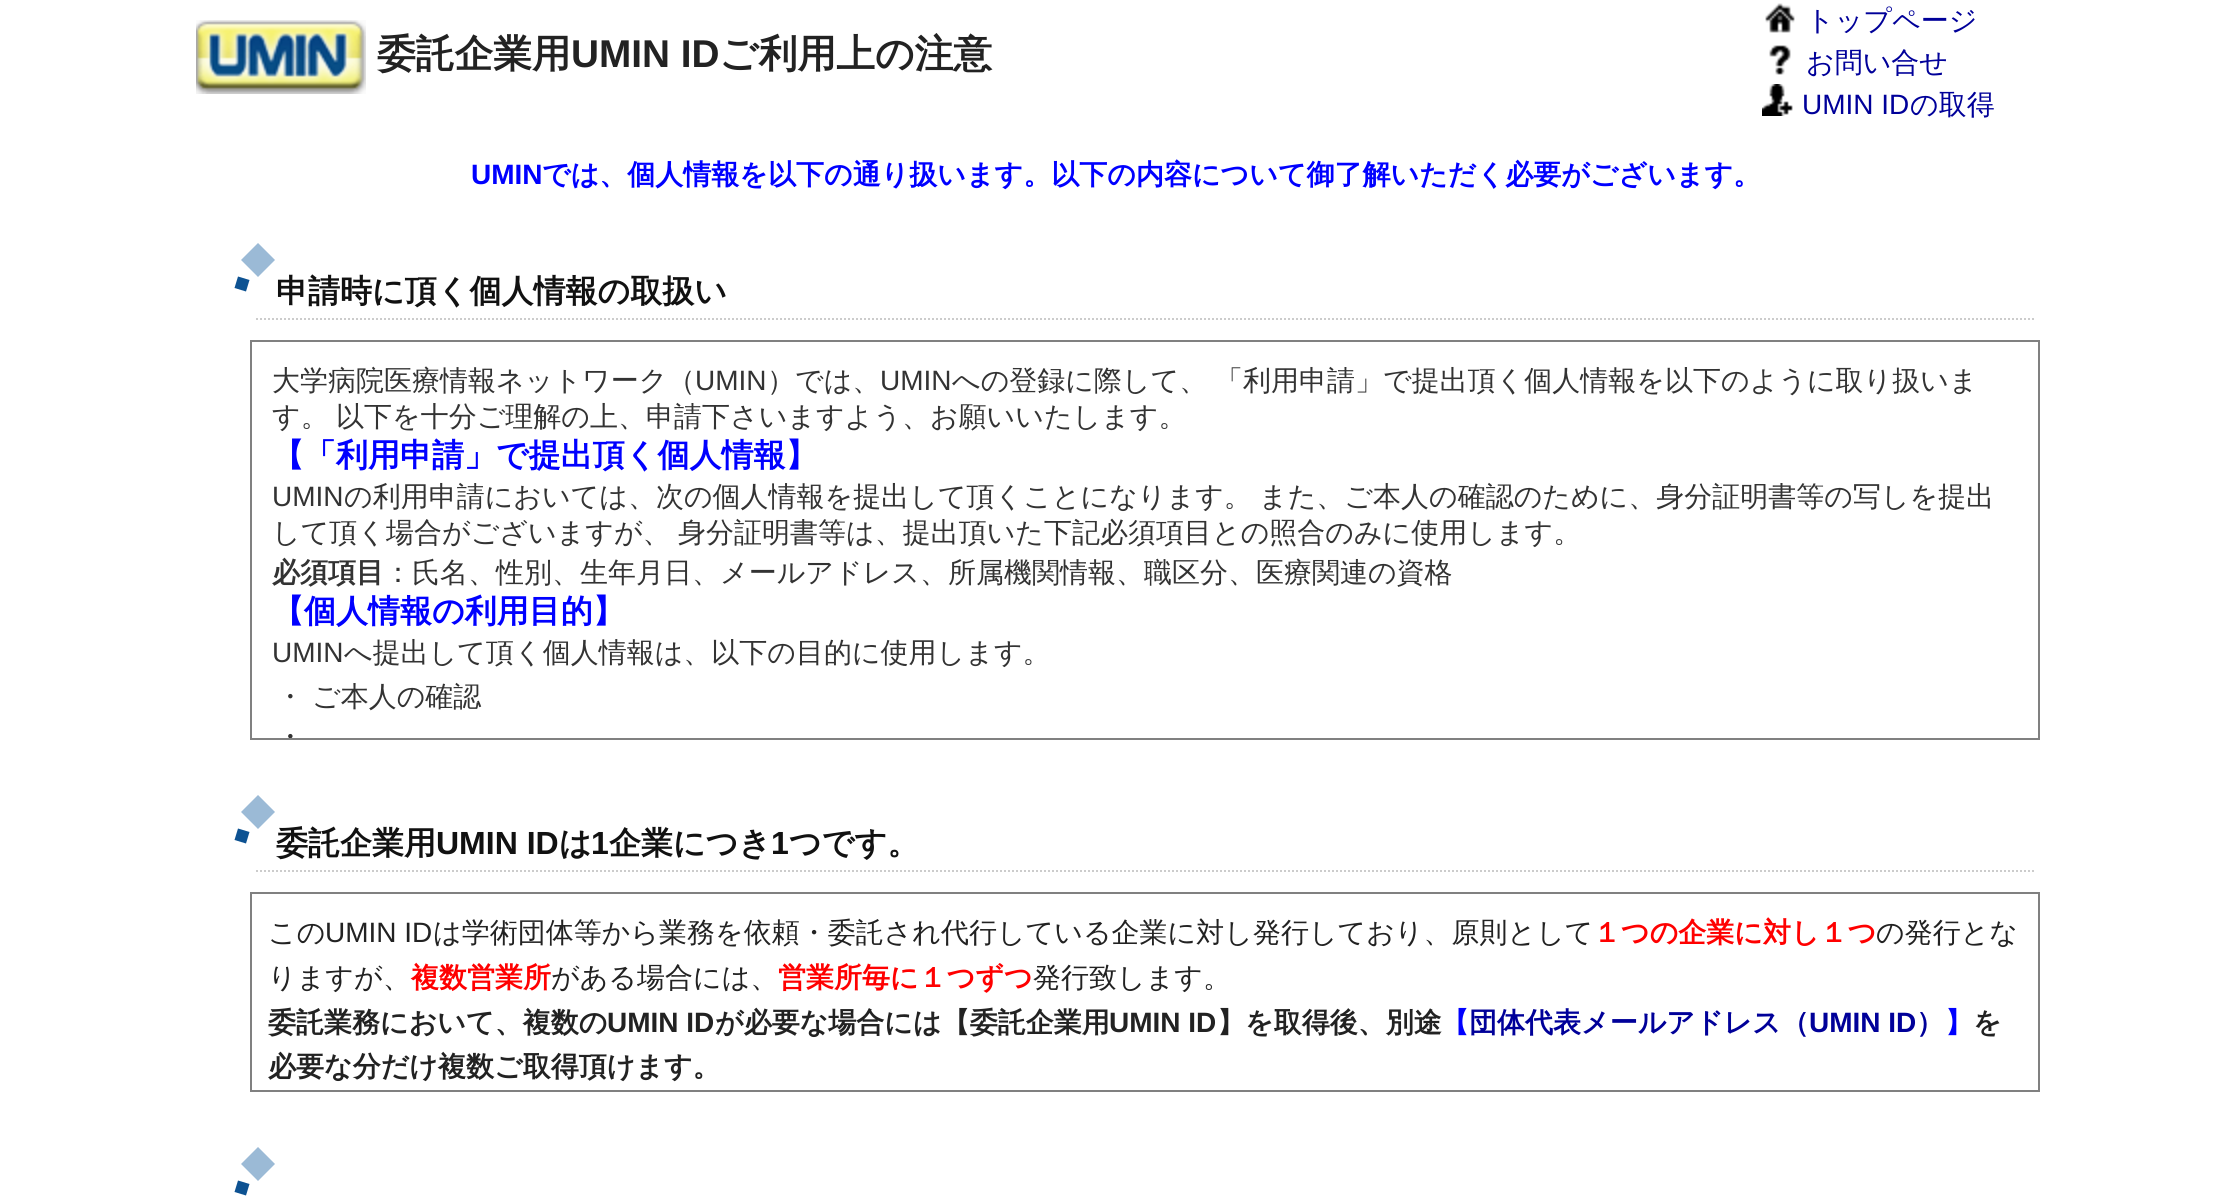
import math
import cairo

surface = cairo.ImageSurface(cairo.FORMAT_RGB24, 2232, 1196)
c = cairo.Context(surface)
options = cairo.FontOptions()
options.set_hint_metrics(cairo.HINT_METRICS_OFF)
options.set_hint_style(cairo.HINT_STYLE_NONE)
c.set_font_options(options)
c.set_miter_limit(4)
def C(code):
 c.set_source_rgb(*(v / 255 for v in bytes.fromhex(code[-6:])))
def F(family, size, italic, bold):
 c.select_font_face(family, cairo.FONT_SLANT_ITALIC if italic else cairo.FONT_SLANT_NORMAL, cairo.FONT_WEIGHT_BOLD if bold else cairo.FONT_WEIGHT_NORMAL)
 c.set_font_size(size)
def T(x, y, s):
 c.move_to(x, y)
 c.show_text(s)
def I(path, x, y, w, h):
 c.save()
 c.set_source_surface(cairo.ImageSurface.create_from_png(path), x, y)
 c.rectangle(x, y, w, h)
 c.fill()
 c.restore()
C('ffffff')
c.paint()
I('1.png',196,20,170,74)
F('WenQuanYi Zen Hei',38.75,0,1)
C('222222')
T(377,67,'委託企業用')
F('Liberation Sans',38.75,0,1)
T(571,67,'UMIN ID')
F('WenQuanYi Zen Hei',38.75,0,1)
T(719,67,'ご利用上の注意')
I('2.png',1765,3,30,30)
F('WenQuanYi Zen Hei Medium',28,0,0)
C('000099')
T(1806,30,'トップページ')
I('3.png',1769,45,22,30)
T(1806,72,'お問い合せ')
I('4.png',1762,84,31,32)
F('Liberation Sans',28,0,0)
T(1802,114,'UMIN ID')
F('WenQuanYi Zen Hei Medium',28,0,0)
T(1910,114,'の取得')
F('Liberation Sans',28,0,1)
C('0000ff')
T(471,184,'UMIN')
F('WenQuanYi Zen Hei',28,0,1)
T(542,184,'では、個人情報を以下の通り扱います。以下の内容について御了解いただく必要がございます。')
c.new_path()
c.move_to(256,319)
c.line_to(2036,319)
C('cccccc')
c.set_dash([2,2])
c.stroke()
C('9bbad6')
c.new_path()
c.move_to(258,243)
c.line_to(275,260)
c.line_to(258,277)
c.line_to(241,260)
c.close_path()
c.fill()
C('0d5292')
c.new_path()
c.move_to(238,276.5)
c.line_to(249.5,280)
c.line_to(246,291.5)
c.line_to(234.5,288)
c.close_path()
c.fill()
F('WenQuanYi Zen Hei',32,0,1)
C('111111')
T(276,302,'申請時に頂く個人情報の取扱い')
c.rectangle(251,341,1788,398)
C('808080')
c.set_dash([])
c.stroke()
F('WenQuanYi Zen Hei Medium',28,0,0)
C('333333')
T(272,390,'大学病院医療情報ネットワーク（')
F('Liberation Sans',28,0,0)
T(695,390,'UMIN')
F('WenQuanYi Zen Hei Medium',28,0,0)
T(767,390,'）では、')
F('Liberation Sans',28,0,0)
T(880,390,'UMIN')
F('WenQuanYi Zen Hei Medium',28,0,0)
T(952,390,'への登録に際して、')
T(1215,390,'「利用申請」で提出頂く個人情報を以下のように取り扱いま')
T(272,426,'す。')
T(336,426,'以下を十分ご理解の上、申請下さいますよう、お願いいたします。')
F('WenQuanYi Zen Hei',32,0,1)
C('0000ff')
T(272,466,'【「利用申請」で提出頂く個人情報】')
F('Liberation Sans',28,0,0)
C('333333')
T(272,506,'UMIN')
F('WenQuanYi Zen Hei Medium',28,0,0)
T(344,506,'の利用申請においては、次の個人情報を提出して頂くことになります。')
T(1259,506,'また、ご本人の確認のために、身分証明書等の写しを提出')
T(272,542,'して頂く場合がございますが、')
T(678,542,'身分証明書等は、提出頂いた下記必須項目との照合のみに使用します。')
F('WenQuanYi Zen Hei',28,0,1)
T(272,582,'必須項目')
F('WenQuanYi Zen Hei Medium',28,0,0)
T(384,582,'：氏名、性別、生年月日、メールアドレス、所属機関情報、職区分、医療関連の資格')
F('WenQuanYi Zen Hei',32,0,1)
C('0000ff')
T(272,622,'【個人情報の利用目的】')
F('Liberation Sans',28,0,0)
C('333333')
T(272,662,'UMIN')
F('WenQuanYi Zen Hei Medium',28,0,0)
T(344,662,'へ提出して頂く個人情報は、以下の目的に使用します。')
T(276,706,'・')
T(312,706,'ご本人の確認')
c.save()
c.rectangle(252,342,1786,396)
c.clip()
T(276,746,'・')
c.restore()
c.new_path()
c.move_to(256,871)
c.line_to(2036,871)
C('cccccc')
c.set_dash([2,2])
c.stroke()
C('9bbad6')
c.new_path()
c.move_to(258,795)
c.line_to(275,812)
c.line_to(258,829)
c.line_to(241,812)
c.close_path()
c.fill()
C('0d5292')
c.new_path()
c.move_to(238,828.5)
c.line_to(249.5,832)
c.line_to(246,843.5)
c.line_to(234.5,840)
c.close_path()
c.fill()
F('WenQuanYi Zen Hei',32,0,1)
C('111111')
T(276,854,'委託企業用')
F('Liberation Sans',32,0,1)
T(436,854,'UMIN ID')
F('WenQuanYi Zen Hei',32,0,1)
T(559,854,'は')
F('Liberation Sans',32,0,1)
T(591,854,'1')
F('WenQuanYi Zen Hei',32,0,1)
T(609,854,'企業につき')
F('Liberation Sans',32,0,1)
T(771,854,'1')
F('WenQuanYi Zen Hei',32,0,1)
T(789,854,'つです。')
c.rectangle(251,893,1788,198)
C('808080')
c.set_dash([])
c.stroke()
F('WenQuanYi Zen Hei Medium',28,0,0)
C('222222')
T(268,942,'この')
F('Liberation Sans',28,0,0)
T(325,942,'UMIN ID')
F('WenQuanYi Zen Hei Medium',28,0,0)
T(433,942,'は学術団体等から業務を依頼・委託され代行している企業に対し発行しており、原則として')
F('WenQuanYi Zen Hei',28,0,1)
C('ff0000')
T(1593,942,'１つの企業に対し１つ')
F('WenQuanYi Zen Hei Medium',28,0,0)
C('222222')
T(1876,942,'の発行とな')
T(268,987,'りますが、')
F('WenQuanYi Zen Hei',28,0,1)
C('ff0000')
T(411,987,'複数営業所')
F('WenQuanYi Zen Hei Medium',28,0,0)
C('222222')
T(551,987,'がある場合には、')
F('WenQuanYi Zen Hei',28,0,1)
C('ff0000')
T(778,987,'営業所毎に１つずつ')
F('WenQuanYi Zen Hei Medium',28,0,0)
C('222222')
T(1033,987,'発行致します。')
F('WenQuanYi Zen Hei',28,0,1)
T(268,1032,'委託業務において、複数の')
F('Liberation Sans',28,0,1)
T(607,1032,'UMIN ID')
F('WenQuanYi Zen Hei',28,0,1)
T(715,1032,'が必要な場合には【委託企業用')
F('Liberation Sans',28,0,1)
T(1109,1032,'UMIN ID')
F('WenQuanYi Zen Hei',28,0,1)
T(1217,1032,'】を取得後、別途')
C('0000ff')
T(1441,1032,'【')
C('000099')
T(1469,1032,'団体代表メールアドレス（')
F('Liberation Sans',28,0,1)
T(1809,1032,'UMIN ID')
F('WenQuanYi Zen Hei',28,0,1)
T(1916,1032,'）')
C('0000ff')
T(1945,1032,'】')
C('222222')
T(1973,1032,'を')
T(268,1076,'必要な分だけ複数ご取得頂けます。')
C('9bbad6')
c.new_path()
c.move_to(258,1147)
c.line_to(275,1164)
c.line_to(258,1181)
c.line_to(241,1164)
c.close_path()
c.fill()
C('0d5292')
c.new_path()
c.move_to(238,1180.5)
c.line_to(249.5,1184)
c.line_to(246,1195.5)
c.line_to(234.5,1192)
c.close_path()
c.fill()
surface.write_to_png('o.png')
